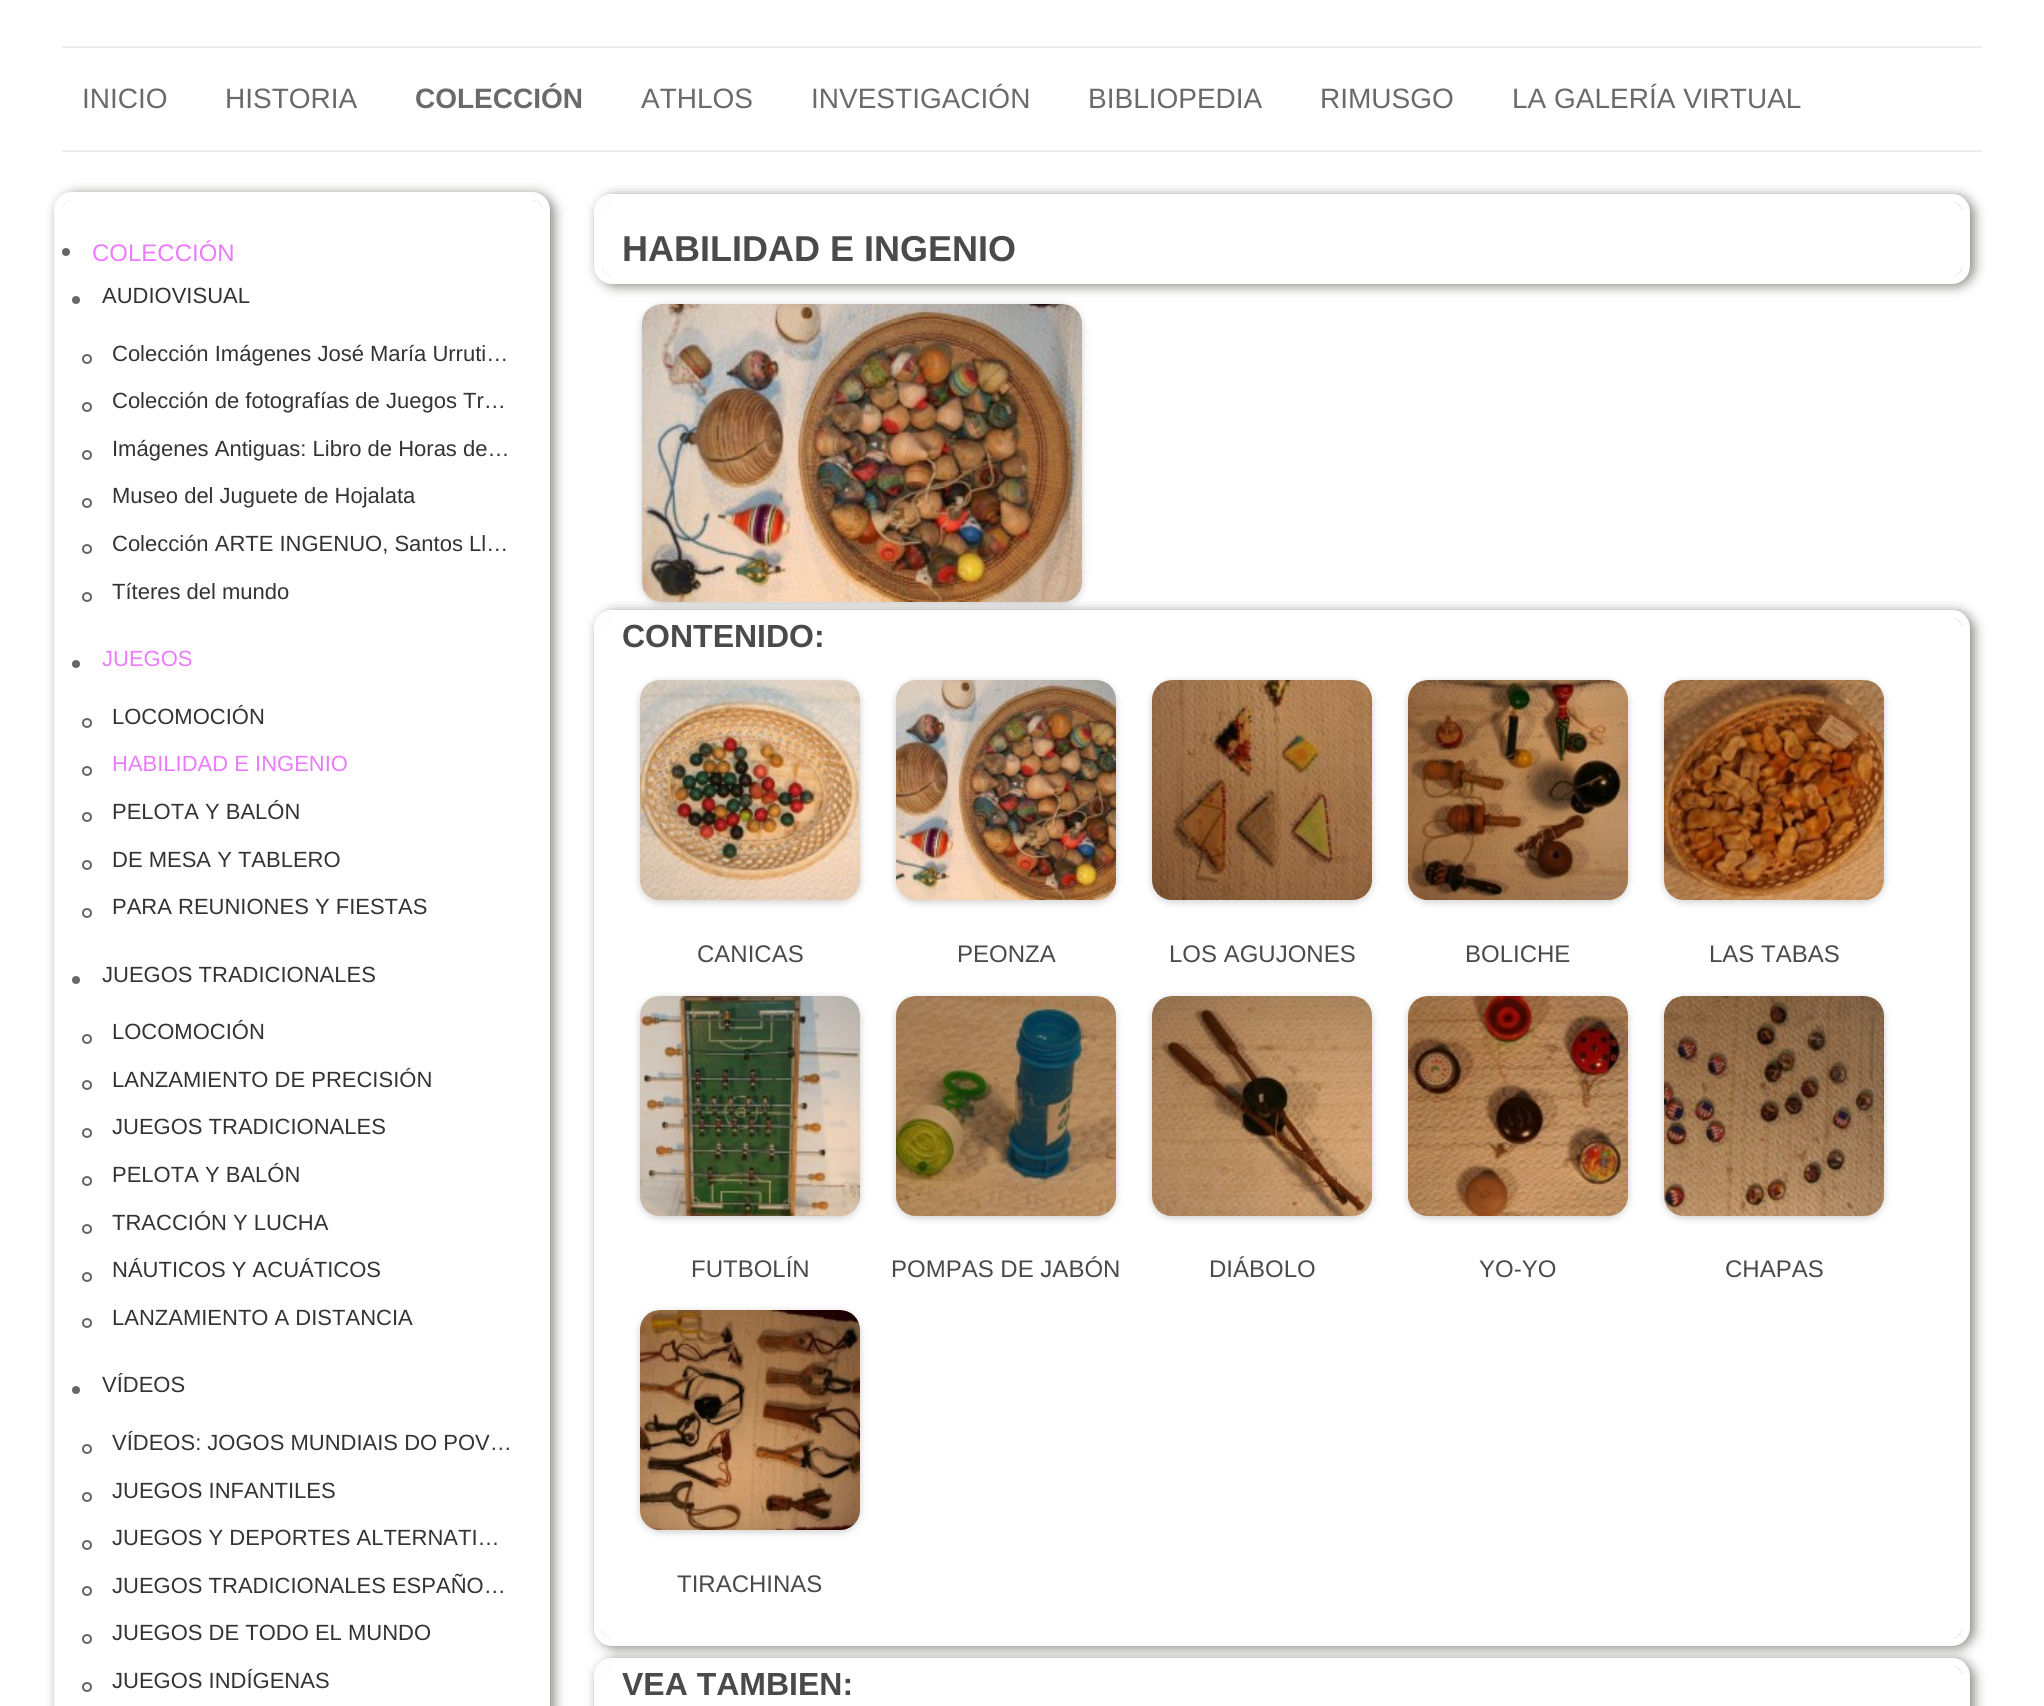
import math
import cairo

surface = cairo.ImageSurface(cairo.FORMAT_RGB24, 2044, 1706)
c = cairo.Context(surface)
options = cairo.FontOptions()
options.set_hint_metrics(cairo.HINT_METRICS_OFF)
options.set_hint_style(cairo.HINT_STYLE_NONE)
c.set_font_options(options)
c.set_miter_limit(4)
def C(code):
 c.set_source_rgb(*(v / 255 for v in bytes.fromhex(code[-6:])))
def F(family, size, italic, bold):
 c.select_font_face(family, cairo.FONT_SLANT_ITALIC if italic else cairo.FONT_SLANT_NORMAL, cairo.FONT_WEIGHT_BOLD if bold else cairo.FONT_WEIGHT_NORMAL)
 c.set_font_size(size)
def T(x, y, s):
 c.move_to(x, y)
 c.show_text(s)
def R(x, y, w, h):
 c.rectangle(x, y, w, h)
 c.fill()
def Q(x, y, w, h, r):
 c.new_sub_path()
 for i, (u, v) in enumerate([(x + w - r, y + h - r), (x + r, y + h - r), (x + r, y + r), (x + w - r, y + r)]):
  c.arc(u, v, r, i * math.pi / 2, (i + 1) * math.pi / 2)
 c.close_path()
def S(x, y, w, h, r, blur, alpha):
 c.push_group_with_content(cairo.CONTENT_ALPHA)
 c.set_operator(cairo.OPERATOR_SOURCE)
 for i in range(15, -16, -2):
  e = blur * i / 6
  if min(w, h) + 2 * e > 0:
   c.set_source_rgba(0, 0, 0, alpha * math.erfc((i - 1) / 8.5) / 2)
   Q(x - e, y - e, w + 2 * e, h + 2 * e, max(0, min(r + e + blur * .6, min(w, h) / 2 + e)))
   c.fill()
 c.mask(c.pop_group())
def I(path, x, y, w, h):
 c.save()
 c.set_source_surface(cairo.ImageSurface.create_from_png(path), x, y)
 c.rectangle(x, y, w, h)
 c.fill()
 c.restore()
C('ffffff')
c.paint()
C('ededed')
R(62,46,1920,2)
R(62,150,1920,2)
F('Liberation Sans',28,0,0)
C('6a6a6a')
T(82,108,'INICIO')
T(225,108,'HISTORIA')
F('Liberation Sans',28,0,1)
T(415,108,'COLECCIÓN')
F('Liberation Sans',28,0,0)
T(641,108,'ATHLOS')
T(811,108,'INVESTIGACIÓN')
T(1088,108,'BIBLIOPEDIA')
T(1320,108,'RIMUSGO')
T(1512,108,'LA GALERÍA VIRTUAL')
c.save()
c.set_fill_rule(cairo.FILL_RULE_EVEN_ODD)
c.new_path()
c.move_to(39,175)
c.line_to(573,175)
c.line_to(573,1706)
c.line_to(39,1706)
c.close_path()
c.move_to(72,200)
c.line_to(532,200)
c.curve_to(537.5,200,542,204.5,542,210)
c.line_to(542,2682)
c.curve_to(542,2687.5,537.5,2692,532,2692)
c.line_to(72,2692)
c.curve_to(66.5,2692,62,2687.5,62,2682)
c.line_to(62,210)
c.curve_to(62,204.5,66.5,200,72,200)
c.close_path()
c.clip()
C('0a0a00')
S(58,194,496,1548,18,6,.5)
c.restore()
Q(58,196,488,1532,14)
C('ffffff')
c.set_line_width(8)
c.stroke()
C('666666')
c.arc(66,252,4,0,2 * math.pi)
c.fill()
F('Liberation Sans',24,0,0)
C('eb7bfd')
T(92,261,'COLECCIÓN')
C('666666')
c.new_path()
c.arc(76,300,4,0,2 * math.pi)
c.fill()
F('Liberation Sans',22,0,0)
C('333333')
T(102,303,'AUDIOVISUAL')
c.new_path()
c.arc(87,359,4,0,2 * math.pi)
C('666666')
c.set_line_width(2)
c.stroke()
C('333333')
T(112,361,'Colección Imágenes José María Urruti…')
c.new_path()
c.arc(87,407,4,0,2 * math.pi)
C('666666')
c.stroke()
C('333333')
T(112,408,'Colección de fotografías de Juegos Tr…')
c.new_path()
c.arc(87,455,4,0,2 * math.pi)
C('666666')
c.stroke()
C('333333')
T(112,456,'Imágenes Antiguas: Libro de Horas de…')
c.new_path()
c.arc(87,503,4,0,2 * math.pi)
C('666666')
c.stroke()
C('333333')
T(112,503,'Museo del Juguete de Hojalata')
c.new_path()
c.arc(87,549,4,0,2 * math.pi)
C('666666')
c.stroke()
C('333333')
T(112,551,'Colección ARTE INGENUO, Santos Ll…')
c.new_path()
c.arc(87,597,4,0,2 * math.pi)
C('666666')
c.stroke()
C('333333')
T(112,599,'Títeres del mundo')
C('666666')
c.new_path()
c.arc(76,664,4,0,2 * math.pi)
c.fill()
C('eb7bfd')
T(102,666,'JUEGOS')
c.new_path()
c.arc(87,723,4,0,2 * math.pi)
C('666666')
c.stroke()
C('333333')
T(112,724,'LOCOMOCIÓN')
c.new_path()
c.arc(87,771,4,0,2 * math.pi)
C('666666')
c.stroke()
C('eb7bfd')
T(112,771,'HABILIDAD E INGENIO')
c.new_path()
c.arc(87,817,4,0,2 * math.pi)
C('666666')
c.stroke()
C('333333')
T(112,819,'PELOTA Y BALÓN')
c.new_path()
c.arc(87,865,4,0,2 * math.pi)
C('666666')
c.stroke()
C('333333')
T(112,867,'DE MESA Y TABLERO')
c.new_path()
c.arc(87,913,4,0,2 * math.pi)
C('666666')
c.stroke()
C('333333')
T(112,914,'PARA REUNIONES Y FIESTAS')
C('666666')
c.new_path()
c.arc(76,980,4,0,2 * math.pi)
c.fill()
C('333333')
T(102,982,'JUEGOS TRADICIONALES')
c.new_path()
c.arc(87,1039,4,0,2 * math.pi)
C('666666')
c.stroke()
C('333333')
T(112,1039,'LOCOMOCIÓN')
c.new_path()
c.arc(87,1085,4,0,2 * math.pi)
C('666666')
c.stroke()
C('333333')
T(112,1087,'LANZAMIENTO DE PRECISIÓN')
c.new_path()
c.arc(87,1133,4,0,2 * math.pi)
C('666666')
c.stroke()
C('333333')
T(112,1134,'JUEGOS TRADICIONALES')
c.new_path()
c.arc(87,1181,4,0,2 * math.pi)
C('666666')
c.stroke()
C('333333')
T(112,1182,'PELOTA Y BALÓN')
c.new_path()
c.arc(87,1229,4,0,2 * math.pi)
C('666666')
c.stroke()
C('333333')
T(112,1230,'TRACCIÓN Y LUCHA')
c.new_path()
c.arc(87,1277,4,0,2 * math.pi)
C('666666')
c.stroke()
C('333333')
T(112,1277,'NÁUTICOS Y ACUÁTICOS')
c.new_path()
c.arc(87,1323,4,0,2 * math.pi)
C('666666')
c.stroke()
C('333333')
T(112,1325,'LANZAMIENTO A DISTANCIA')
C('666666')
c.new_path()
c.arc(76,1390,4,0,2 * math.pi)
c.fill()
C('333333')
T(102,1392,'VÍDEOS')
c.new_path()
c.arc(87,1449,4,0,2 * math.pi)
C('666666')
c.stroke()
C('333333')
T(112,1450,'VÍDEOS: JOGOS MUNDIAIS DO POV…')
c.new_path()
c.arc(87,1497,4,0,2 * math.pi)
C('666666')
c.stroke()
C('333333')
T(112,1498,'JUEGOS INFANTILES')
c.new_path()
c.arc(87,1545,4,0,2 * math.pi)
C('666666')
c.stroke()
C('333333')
T(112,1545,'JUEGOS Y DEPORTES ALTERNATI…')
c.new_path()
c.arc(87,1591,4,0,2 * math.pi)
C('666666')
c.stroke()
C('333333')
T(112,1593,'JUEGOS TRADICIONALES ESPAÑO…')
c.new_path()
c.arc(87,1639,4,0,2 * math.pi)
C('666666')
c.stroke()
C('333333')
T(112,1640,'JUEGOS DE TODO EL MUNDO')
c.new_path()
c.arc(87,1687,4,0,2 * math.pi)
C('666666')
c.stroke()
C('333333')
T(112,1688,'JUEGOS INDÍGENAS')
c.save()
c.set_fill_rule(cairo.FILL_RULE_EVEN_ODD)
c.new_path()
c.move_to(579,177)
c.line_to(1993,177)
c.line_to(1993,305)
c.line_to(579,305)
c.close_path()
c.move_to(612,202)
c.line_to(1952,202)
c.curve_to(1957.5,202,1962,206.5,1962,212)
c.line_to(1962,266)
c.curve_to(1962,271.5,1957.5,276,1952,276)
c.line_to(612,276)
c.curve_to(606.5,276,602,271.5,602,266)
c.line_to(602,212)
c.curve_to(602,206.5,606.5,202,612,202)
c.close_path()
c.clip()
C('0a0a00')
S(598,196,1376,90,18,6,.5)
c.restore()
Q(598,198,1368,82,14)
C('ffffff')
c.set_line_width(8)
c.stroke()
F('Liberation Sans',36,0,1)
C('4a4a4a')
T(622,261,'HABILIDAD E INGENIO')
c.save()
c.set_fill_rule(cairo.FILL_RULE_EVEN_ODD)
c.new_path()
c.move_to(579,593)
c.line_to(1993,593)
c.line_to(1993,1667)
c.line_to(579,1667)
c.close_path()
c.move_to(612,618)
c.line_to(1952,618)
c.curve_to(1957.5,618,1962,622.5,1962,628)
c.line_to(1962,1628)
c.curve_to(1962,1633.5,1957.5,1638,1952,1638)
c.line_to(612,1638)
c.curve_to(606.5,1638,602,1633.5,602,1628)
c.line_to(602,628)
c.curve_to(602,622.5,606.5,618,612,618)
c.close_path()
c.clip()
C('0a0a00')
S(598,612,1376,1036,18,6,.5)
c.restore()
Q(598,614,1368,1028,14)
C('ffffff')
c.stroke()
C('000000')
S(642,306,440,298,20,4,.2)
I('1.png',642,304,440,298)
F('Liberation Sans',32,0,1)
C('4a4a4a')
T(622,647,'CONTENIDO:')
C('000000')
S(640,682,220,220,20,4,.2)
I('2.png',640,680,220,220)
F('Liberation Sans',24,0,0)
C('4a4a4a')
T(697,962,'CANICAS')
C('000000')
S(896,682,220,220,20,4,.2)
I('3.png',896,680,220,220)
C('4a4a4a')
T(957,962,'PEONZA')
C('000000')
S(1152,682,220,220,20,4,.2)
I('4.png',1152,680,220,220)
C('4a4a4a')
T(1169,962,'LOS AGUJONES')
C('000000')
S(1408,682,220,220,20,4,.2)
I('5.png',1408,680,220,220)
C('4a4a4a')
T(1465,962,'BOLICHE')
C('000000')
S(1664,682,220,220,20,4,.2)
I('6.png',1664,680,220,220)
C('4a4a4a')
T(1709,962,'LAS TABAS')
C('000000')
S(640,998,220,220,20,4,.2)
I('7.png',640,996,220,220)
C('4a4a4a')
T(691,1277,'FUTBOLÍN')
C('000000')
S(896,998,220,220,20,4,.2)
I('8.png',896,996,220,220)
C('4a4a4a')
T(891,1277,'POMPAS DE JABÓN')
C('000000')
S(1152,998,220,220,20,4,.2)
I('9.png',1152,996,220,220)
C('4a4a4a')
T(1209,1277,'DIÁBOLO')
C('000000')
S(1408,998,220,220,20,4,.2)
I('10.png',1408,996,220,220)
C('4a4a4a')
T(1479,1277,'YO-YO')
C('000000')
S(1664,998,220,220,20,4,.2)
I('11.png',1664,996,220,220)
C('4a4a4a')
T(1725,1277,'CHAPAS')
C('000000')
S(640,1312,220,220,20,4,.2)
I('12.png',640,1310,220,220)
C('4a4a4a')
T(677,1592,'TIRACHINAS')
c.save()
c.set_fill_rule(cairo.FILL_RULE_EVEN_ODD)
c.new_path()
c.move_to(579,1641)
c.line_to(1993,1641)
c.line_to(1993,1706)
c.line_to(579,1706)
c.close_path()
c.move_to(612,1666)
c.line_to(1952,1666)
c.curve_to(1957.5,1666,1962,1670.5,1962,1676)
c.line_to(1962,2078)
c.curve_to(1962,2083.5,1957.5,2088,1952,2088)
c.line_to(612,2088)
c.curve_to(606.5,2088,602,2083.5,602,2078)
c.line_to(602,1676)
c.curve_to(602,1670.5,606.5,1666,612,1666)
c.close_path()
c.clip()
C('0a0a00')
S(598,1660,1376,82,18,6,.5)
c.restore()
Q(598,1662,1368,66,14)
C('ffffff')
c.stroke()
F('Liberation Sans',32,0,1)
C('4a4a4a')
T(622,1695,'VEA TAMBIEN:')
surface.write_to_png('o.png')
